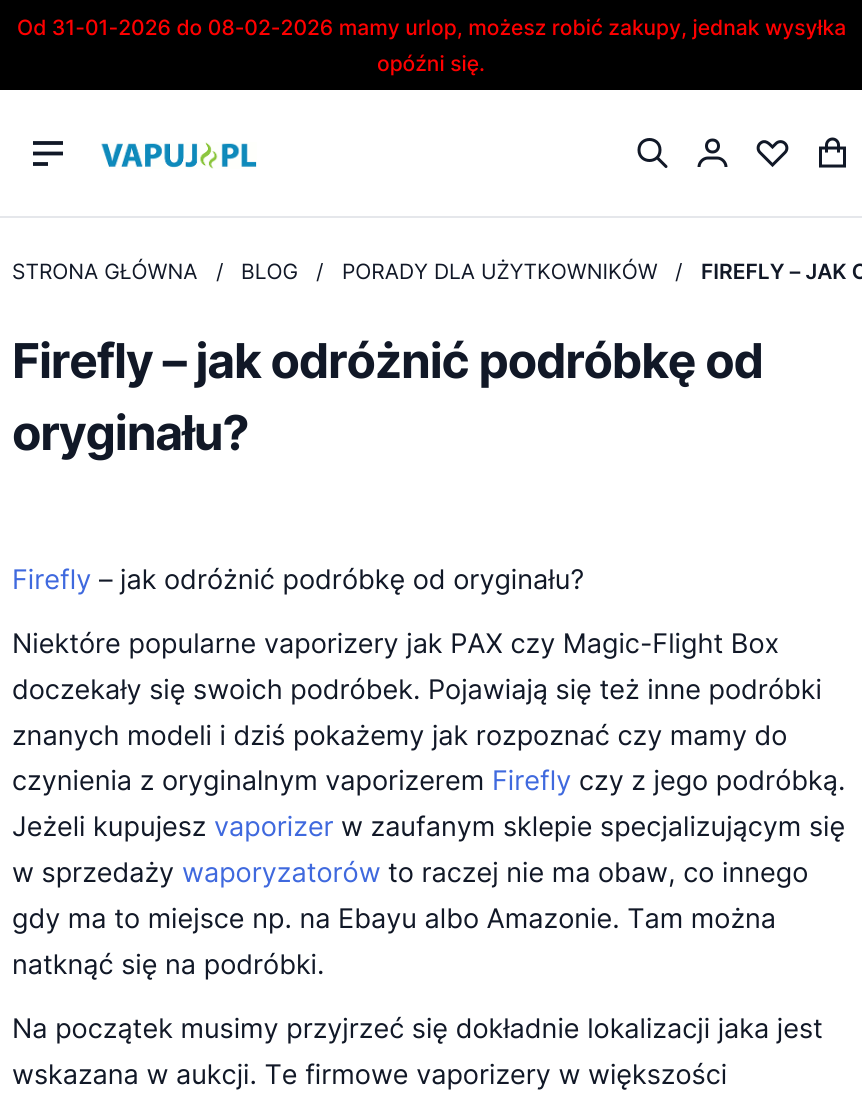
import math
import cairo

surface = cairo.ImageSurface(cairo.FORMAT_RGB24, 862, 1110)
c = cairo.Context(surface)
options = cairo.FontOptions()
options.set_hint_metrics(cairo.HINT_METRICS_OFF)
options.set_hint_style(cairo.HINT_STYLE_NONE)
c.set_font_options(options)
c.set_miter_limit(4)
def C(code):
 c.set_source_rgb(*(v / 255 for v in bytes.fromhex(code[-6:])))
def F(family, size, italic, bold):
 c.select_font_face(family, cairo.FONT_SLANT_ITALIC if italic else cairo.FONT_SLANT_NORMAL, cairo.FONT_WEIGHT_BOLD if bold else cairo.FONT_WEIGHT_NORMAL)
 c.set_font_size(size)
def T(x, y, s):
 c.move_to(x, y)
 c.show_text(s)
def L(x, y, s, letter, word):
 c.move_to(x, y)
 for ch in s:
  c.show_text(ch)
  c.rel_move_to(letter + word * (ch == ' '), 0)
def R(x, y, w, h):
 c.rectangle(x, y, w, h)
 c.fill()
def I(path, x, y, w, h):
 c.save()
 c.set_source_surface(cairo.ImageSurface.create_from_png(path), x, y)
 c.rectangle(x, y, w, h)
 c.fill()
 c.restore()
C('ffffff')
c.paint()
C('e5e7eb')
R(0,216,862,2)
C('000000')
R(0,0,862,90)
F('Inter Medium',21,0,0)
C('ff0000')
T(17,35,'Od 31-01-2026 do 08-02-2026 mamy urlop, możesz robić zakupy, jednak wysyłka')
T(377,71,'opóźni się.')
c.new_path()
c.move_to(33,143)
c.line_to(63,143)
c.move_to(33,153.5)
c.line_to(63,153.5)
c.move_to(33,164)
c.line_to(48,164)
C('111827')
c.set_line_width(3.8)
c.stroke()
I('1.png',101,142,156,27)
c.new_path()
c.move_to(666,166.5)
c.line_to(657,157.5)
c.move_to(660,150)
c.curve_to(660,164,639,164,639,150)
c.curve_to(639,136,660,136,660,150)
c.close_path()
c.set_line_width(3)
c.set_line_cap(cairo.LINE_CAP_ROUND)
c.set_line_join(cairo.LINE_JOIN_ROUND)
c.stroke()
c.new_path()
c.move_to(712.5,152)
c.curve_to(720.5,152,720.5,140,712.5,140)
c.curve_to(704.5,140,704.5,152,712.5,152)
c.close_path()
c.move_to(699,167)
c.curve_to(699,162.5,703,158,708,158)
c.line_to(717,158)
c.curve_to(722,158,726,162.5,726,167)
c.set_line_cap(cairo.LINE_CAP_BUTT)
c.set_line_join(cairo.LINE_JOIN_MITER)
c.stroke()
c.new_path()
c.move_to(760,143.5)
c.curve_to(757.5,146,757.5,150,760,152.5)
c.line_to(772.5,165)
c.line_to(785,152.5)
c.curve_to(787.5,150,787.5,146,785,143.5)
c.curve_to(782.5,141,778.5,141,776,143.5)
c.line_to(772.5,147)
c.curve_to(769,143.5,765,139,760,143.5)
c.close_path()
c.stroke()
c.new_path()
c.move_to(820.5,148)
c.line_to(844.5,148)
c.line_to(844.5,166)
c.line_to(820.5,166)
c.close_path()
c.move_to(838.5,152.5)
c.line_to(838.5,145)
c.curve_to(838.5,142,836,139,832.5,139)
c.curve_to(829,139,826.5,142,826.5,145)
c.line_to(826.5,152.5)
c.stroke()
F('Inter',21,0,0)
T(12,279,'STRONA GŁÓWNA')
T(216,279,'/')
T(241,279,'BLOG')
T(316,279,'/')
T(342,279,'PORADY DLA UŻYTKOWNIKÓW')
T(675,279,'/')
F('Inter SemiBold',21,0,0)
T(701,279,'FIREFLY – JAK O')
F('Inter',48,0,1)
L(12,378,'Firefly – jak odróżnić podróbkę od',-1.2,0)
L(12,450,'oryginału?',-1.2,0)
F('Inter',27,0,0)
C('3f69de')
T(12,589,'Firefly')
C('111827')
T(99,589,'– jak odróżnić podróbkę od oryginału?')
T(12,653,'Niektóre popularne vaporizery jak PAX czy Magic-Flight Box')
T(12,699,'doczekały się swoich podróbek. Pojawiają się też inne podróbki')
T(12,745,'znanych modeli i dziś pokażemy jak rozpoznać czy mamy do')
T(12,790,'czynienia z oryginalnym vaporizerem')
C('3f69de')
T(492,790,'Firefly')
C('111827')
T(579,790,'czy z jego podróbką.')
T(12,836,'Jeżeli kupujesz')
C('3f69de')
T(214,836,'vaporizer')
C('111827')
T(341,836,'w zaufanym sklepie specjalizującym się')
T(12,882,'w sprzedaży')
C('3f69de')
T(182,882,'waporyzatorów')
C('111827')
T(388,882,'to raczej nie ma obaw, co innego')
T(12,928,'gdy ma to miejsce np. na Ebayu albo Amazonie. Tam można')
T(12,974,'natknąć się na podróbki.')
T(12,1038,'Na początek musimy przyjrzeć się dokładnie lokalizacji jaka jest')
T(12,1084,'wskazana w aukcji. Te firmowe vaporizery w większości')
surface.write_to_png('o.png')
